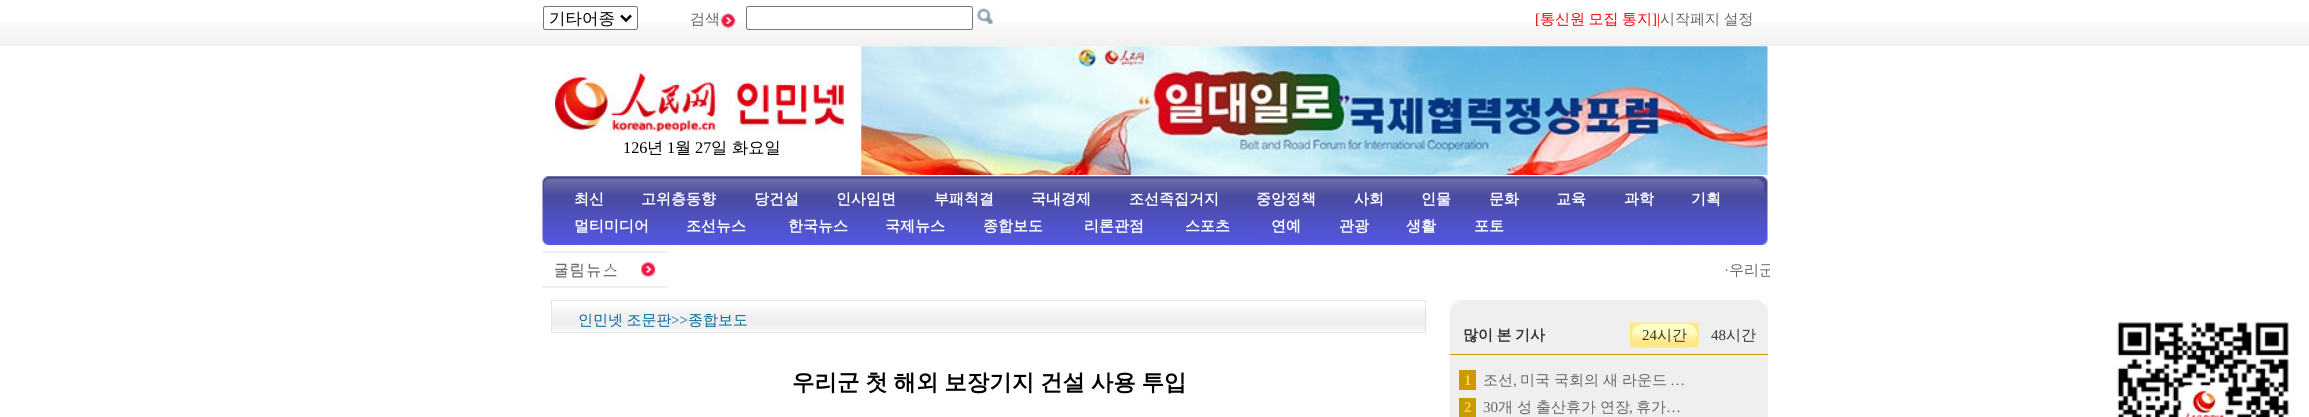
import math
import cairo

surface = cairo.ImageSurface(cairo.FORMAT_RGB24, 2309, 417)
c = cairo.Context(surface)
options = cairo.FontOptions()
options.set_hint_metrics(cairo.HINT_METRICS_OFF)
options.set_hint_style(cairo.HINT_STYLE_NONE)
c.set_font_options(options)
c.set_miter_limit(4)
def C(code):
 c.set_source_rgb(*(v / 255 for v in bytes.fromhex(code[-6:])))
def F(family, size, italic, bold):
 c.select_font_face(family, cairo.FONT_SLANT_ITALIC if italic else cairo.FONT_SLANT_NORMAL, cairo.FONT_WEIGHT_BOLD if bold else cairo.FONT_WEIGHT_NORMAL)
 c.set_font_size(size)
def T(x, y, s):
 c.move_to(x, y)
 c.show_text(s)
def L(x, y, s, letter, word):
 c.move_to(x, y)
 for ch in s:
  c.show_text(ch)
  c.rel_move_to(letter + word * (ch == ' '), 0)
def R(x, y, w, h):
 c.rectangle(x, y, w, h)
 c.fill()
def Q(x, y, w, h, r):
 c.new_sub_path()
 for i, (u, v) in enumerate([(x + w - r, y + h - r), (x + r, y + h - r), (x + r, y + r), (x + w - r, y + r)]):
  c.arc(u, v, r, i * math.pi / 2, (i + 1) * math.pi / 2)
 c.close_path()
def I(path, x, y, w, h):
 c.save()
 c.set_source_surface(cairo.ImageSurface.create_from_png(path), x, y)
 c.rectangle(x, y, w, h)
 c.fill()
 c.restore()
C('ffffff')
c.paint()
I('1.png',0,22,2309,24)
C('ffffff')
Q(543.5,6.5,94,23,2)
c.fill_preserve()
C('767676')
c.set_line_width(1)
c.stroke()
c.new_path()
c.move_to(621,15.5)
c.line_to(626,20.5)
c.line_to(631,15.5)
C('000000')
c.set_line_width(2.5)
c.stroke()
F('WenQuanYi Zen Hei Medium',16.5,0,0)
T(549,24,'기타어종')
F('WenQuanYi Zen Hei Medium',15,0,0)
C('666666')
T(690,24,'검색')
I('2.png',720,13,16,15)
C('ffffff')
Q(746.5,6.5,226,23,2)
c.fill_preserve()
C('767676')
c.set_line_width(1)
c.stroke()
I('3.png',976,8,17,16)
F('Liberation Serif',15,0,0)
C('ff0000')
T(1535,24,'[')
F('WenQuanYi Zen Hei Medium',15,0,0)
L(1540,24,'통신원 모집 통지',0,-1)
F('Liberation Serif',15,0,0)
T(1652,24,']|')
F('WenQuanYi Zen Hei Medium',15,0,0)
C('666666')
L(1660,24,'시작페지 설정',0,-1)
I('4.png',555,71,290,61)
F('Liberation Serif',16.25,0,0)
C('000000')
T(623,153,'126')
F('WenQuanYi Zen Hei Medium',16.25,0,0)
T(647,153,'년')
F('Liberation Serif',16.25,0,0)
T(667,153,'1')
F('WenQuanYi Zen Hei Medium',16.25,0,0)
T(675,153,'월')
F('Liberation Serif',16.25,0,0)
T(695,153,'27')
F('WenQuanYi Zen Hei Medium',16.25,0,0)
T(711,153,'일 화요일')
I('5.png',861,46,907,129)
I('6.png',542,176,1226,69)
F('WenQuanYi Zen Hei',15,0,1)
C('ffffff')
T(574,204,'최신')
T(641,204,'고위층동향')
T(754,204,'당건설')
T(836,204,'인사임면')
T(934,204,'부패척결')
T(1031,204,'국내경제')
T(1129,204,'조선족집거지')
T(1256,204,'중앙정책')
T(1354,204,'사회')
T(1421,204,'인물')
T(1489,204,'문화')
T(1556,204,'교육')
T(1624,204,'과학')
T(1691,204,'기획')
T(574,231,'멀티미디어')
T(686,231,'조선뉴스')
T(788,231,'한국뉴스')
T(885,231,'국제뉴스')
T(983,231,'종합보도')
T(1084,231,'리론관점')
T(1185,231,'스포츠')
T(1271,231,'연예')
T(1339,231,'관광')
T(1406,231,'생활')
T(1474,231,'포토')
I('7.png',542,251,126,37)
F('Liberation Serif',15,0,0)
C('666666')
T(1724,275,'·')
c.save()
c.rectangle(670,258,1100,36)
c.clip()
F('WenQuanYi Zen Hei Medium',15,0,0)
L(1729,275,'우리군',0,-1)
c.restore()
I('8.png',552,307,875,24)
c.rectangle(551.5,300.5,874,32)
C('e3e3e3')
c.stroke()
F('WenQuanYi Zen Hei Medium',15,0,0)
C('006699')
L(578,325,'인민넷 조문판',0,-1)
F('Liberation Serif',15,0,0)
T(671,325,'>>')
F('WenQuanYi Zen Hei Medium',15,0,0)
T(688,325,'종합보도')
F('WenQuanYi Zen Hei',22.5,0,1)
C('000000')
L(792,390,'우리군 첫 해외 보장기지 건설 사용 투입',0,-1)
C('efeff0')
R(1450,300,318,117)
I('9.png',1450,300,318,10)
C('cc9900')
R(1450,354,318,1)
F('WenQuanYi Zen Hei',15,0,1)
C('333333')
L(1463,340,'많이 본 기사',0,-1)
I('10.png',1630,322,69,26)
F('Liberation Serif',15,0,0)
T(1642,340,'24')
F('WenQuanYi Zen Hei Medium',15,0,0)
T(1657,340,'시간')
F('Liberation Serif',15,0,0)
T(1711,340,'48')
F('WenQuanYi Zen Hei Medium',15,0,0)
T(1726,340,'시간')
C('cc9900')
R(1459,370,17,20)
F('Liberation Serif',15,0,1)
C('ffd349')
T(1464,385,'1')
F('WenQuanYi Zen Hei Medium',15,0,0)
C('666666')
T(1483,385,'조선')
L(1520,385,'미국 국회의 새 라운드',0,-.5)
F('Liberation Serif',15,0,0)
T(1513,385,',')
T(1670,385,'…')
C('cc9900')
R(1459,398,17,19)
F('Liberation Serif',15,0,1)
C('ffd349')
T(1464,412,'2')
F('Liberation Serif',15,0,0)
C('666666')
T(1483,412,'30')
F('WenQuanYi Zen Hei Medium',15,0,0)
L(1498,412,'개 성 출산휴가 연장',0,-.5)
F('Liberation Serif',15,0,0)
T(1629,412,',')
F('WenQuanYi Zen Hei Medium',15,0,0)
T(1636,412,'휴가')
F('Liberation Serif',15,0,0)
T(1666,412,'…')
I('11.png',2117,322,172,95)
surface.write_to_png('o.png')
